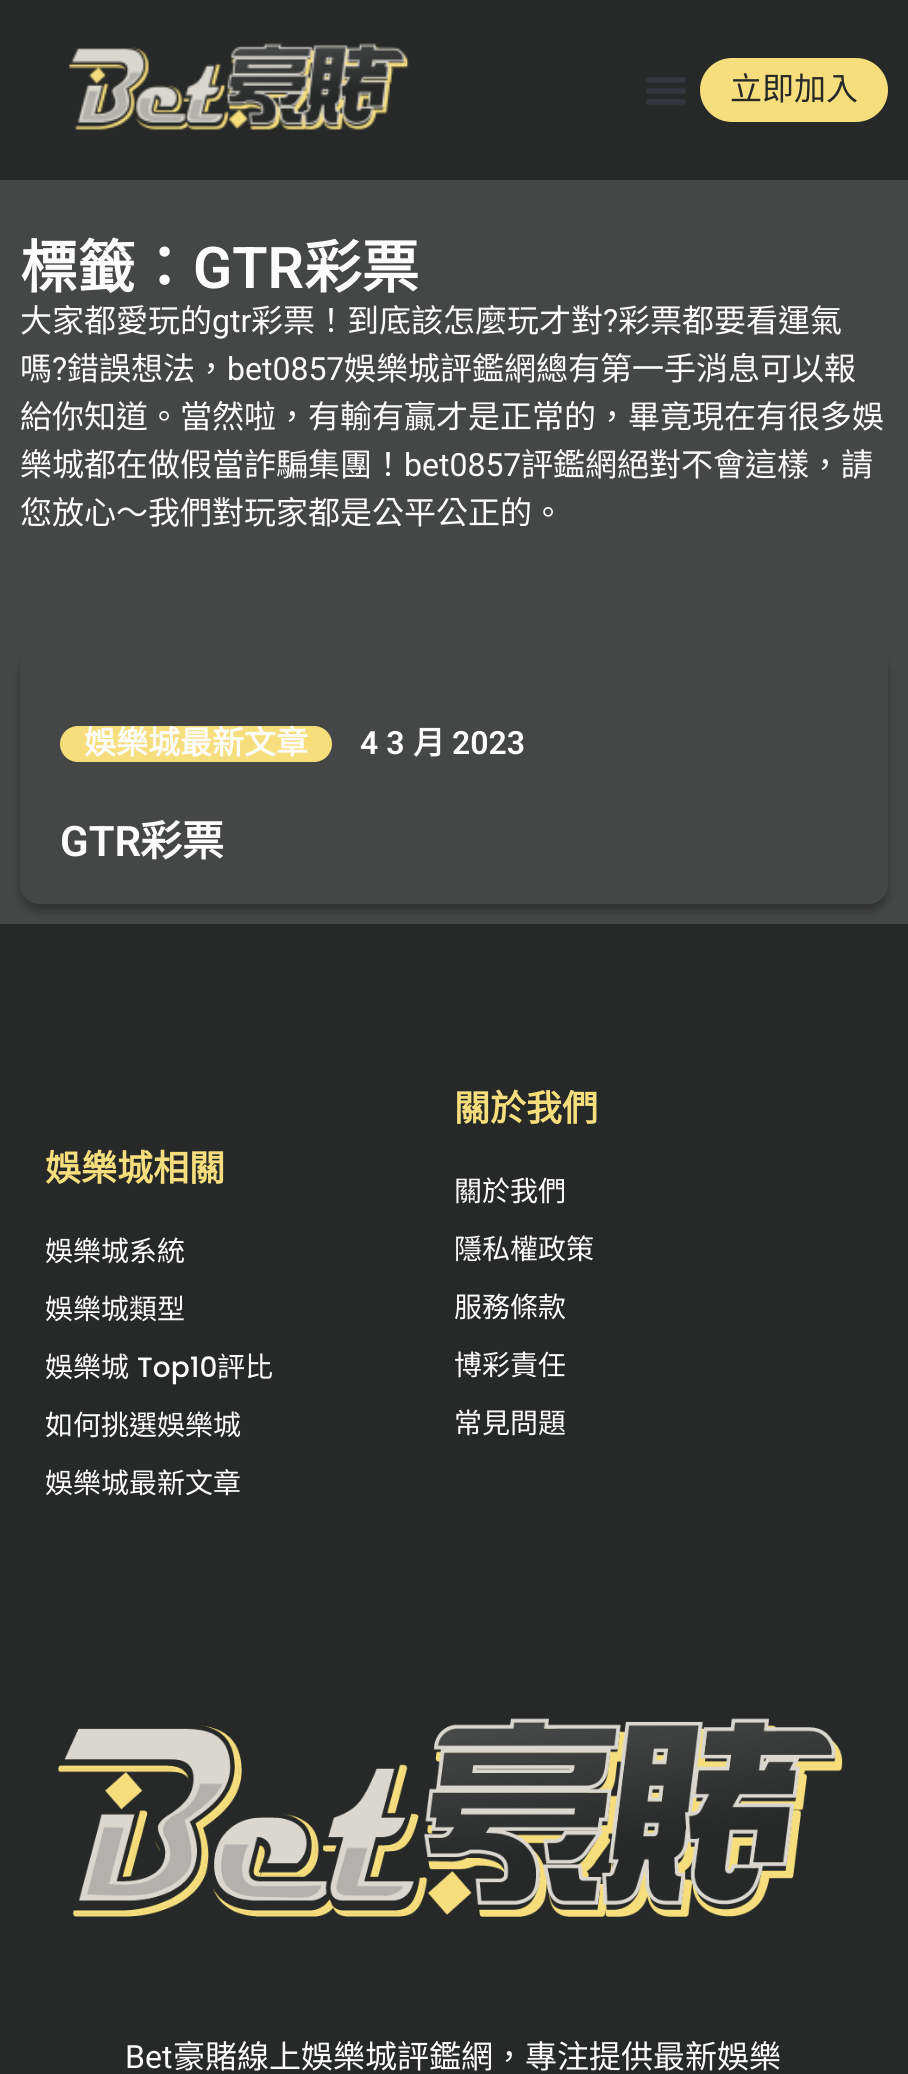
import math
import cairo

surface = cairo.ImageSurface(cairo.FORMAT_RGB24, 908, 2074)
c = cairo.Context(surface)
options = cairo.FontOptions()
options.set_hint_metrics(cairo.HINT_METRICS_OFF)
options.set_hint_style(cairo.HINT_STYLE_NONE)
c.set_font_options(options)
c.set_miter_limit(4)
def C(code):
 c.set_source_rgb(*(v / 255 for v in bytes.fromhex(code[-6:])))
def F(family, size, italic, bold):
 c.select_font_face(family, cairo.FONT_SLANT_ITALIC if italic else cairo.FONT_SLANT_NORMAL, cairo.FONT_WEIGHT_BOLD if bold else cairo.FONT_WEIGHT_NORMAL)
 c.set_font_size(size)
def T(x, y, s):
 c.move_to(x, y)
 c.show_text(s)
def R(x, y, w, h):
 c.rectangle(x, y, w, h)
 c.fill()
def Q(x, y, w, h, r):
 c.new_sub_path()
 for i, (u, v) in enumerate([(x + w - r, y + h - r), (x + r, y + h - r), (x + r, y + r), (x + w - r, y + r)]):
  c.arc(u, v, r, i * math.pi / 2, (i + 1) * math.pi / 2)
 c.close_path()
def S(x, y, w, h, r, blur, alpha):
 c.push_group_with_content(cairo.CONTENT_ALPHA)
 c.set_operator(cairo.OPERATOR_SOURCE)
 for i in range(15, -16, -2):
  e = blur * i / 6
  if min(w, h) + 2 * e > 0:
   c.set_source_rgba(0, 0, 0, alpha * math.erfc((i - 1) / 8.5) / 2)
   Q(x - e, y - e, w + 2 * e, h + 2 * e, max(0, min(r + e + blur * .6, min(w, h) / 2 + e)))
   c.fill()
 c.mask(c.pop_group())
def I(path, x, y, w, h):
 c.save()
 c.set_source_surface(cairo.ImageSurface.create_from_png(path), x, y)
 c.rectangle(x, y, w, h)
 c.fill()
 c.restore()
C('454746')
c.paint()
C('272928')
R(0,0,908,180)
I('1.png',69,43,341,87)
I('2.png',646,77,40,28)
C('f6de7d')
Q(700,58,188,64,32)
c.fill()
F('Noto Sans CJK TC',32,0,0)
C('272928')
T(730,100,'立即加入')
F('Noto Sans CJK TC',57.5,0,1)
C('fcfcfc')
T(20,288,'標籤：')
F('Roboto SemiBold',57.5,0,0)
T(193,288,'GTR')
F('Noto Sans CJK TC',57.5,0,1)
T(304,288,'彩票')
F('Noto Sans CJK TC',32,0,0)
T(20,332,'大家都愛玩的')
F('Roboto',32,0,0)
T(212,332,'gtr')
F('Noto Sans CJK TC',32,0,0)
T(251,332,'彩票！到底該怎麼玩才對')
F('Roboto',32,0,0)
T(603,332,'?')
F('Noto Sans CJK TC',32,0,0)
T(618,332,'彩票都要看運氣')
T(20,380,'嗎')
F('Roboto',32,0,0)
T(52,380,'?')
F('Noto Sans CJK TC',32,0,0)
T(67,380,'錯誤想法，')
F('Roboto',32,0,0)
T(227,380,'bet0857')
F('Noto Sans CJK TC',32,0,0)
T(344,380,'娛樂城評鑑網總有第一手消息可以報')
T(20,428,'給你知道。當然啦，有輸有贏才是正常的，畢竟現在有很多娛')
T(20,476,'樂城都在做假當詐騙集團！')
F('Roboto',32,0,0)
T(404,476,'bet0857')
F('Noto Sans CJK TC',32,0,0)
T(521,476,'評鑑網絕對不會這樣，請')
T(20,524,'您放心～我們對玩家都是公平公正的。')
c.save()
c.set_fill_rule(cairo.FILL_RULE_EVEN_ODD)
c.new_path()
c.move_to(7,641)
c.line_to(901,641)
c.line_to(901,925)
c.line_to(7,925)
c.close_path()
c.move_to(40,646)
c.line_to(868,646)
c.curve_to(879,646,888,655,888,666)
c.line_to(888,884)
c.curve_to(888,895,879,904,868,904)
c.line_to(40,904)
c.curve_to(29,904,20,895,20,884)
c.line_to(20,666)
c.curve_to(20,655,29,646,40,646)
c.close_path()
c.clip()
C('000000')
S(20,654,868,258,20,4,.28)
c.restore()
C('f6de7d')
Q(60,726,272,36,18)
c.fill()
F('Noto Sans CJK TC',32,0,1)
C('fcfcfc')
T(84,754,'娛樂城最新文章')
F('Roboto SemiBold',32,0,0)
T(360,754,'4 3')
F('Noto Sans CJK TC',32,0,1)
T(413,754,'月')
F('Roboto SemiBold',32,0,0)
T(452,754,'2023')
F('Roboto SemiBold',42,0,0)
T(60,856,'GTR')
F('Noto Sans CJK TC',42,0,1)
T(140,856,'彩票')
C('272928')
R(0,924,908,1150)
F('Noto Sans CJK TC',36,0,1)
C('f6de7d')
T(45,1181,'娛樂城相關')
F('Noto Sans CJK TC',28,0,0)
C('fcfcfc')
T(45,1261,'娛樂城系統')
T(45,1319,'娛樂城類型')
T(45,1377,'娛樂城')
F('Poppins Medium',28,0,0)
T(137,1377,'Top10')
F('Noto Sans CJK TC',28,0,0)
T(217,1377,'評比')
T(45,1435,'如何挑選娛樂城')
T(45,1493,'娛樂城最新文章')
F('Noto Sans CJK TC',36,0,1)
C('f6de7d')
T(454,1121,'關於我們')
F('Noto Sans CJK TC',28,0,0)
C('fcfcfc')
T(454,1201,'關於我們')
T(454,1259,'隱私權政策')
T(454,1317,'服務條款')
T(454,1375,'博彩責任')
T(454,1433,'常見問題')
I('3.png',58,1718,785,199)
F('Roboto',32,0,0)
T(125,2068,'Bet')
F('Noto Sans CJK TC',32,0,0)
T(173,2068,'豪賭線上娛樂城評鑑網，專注提供最新娛樂')
surface.write_to_png('o.png')
